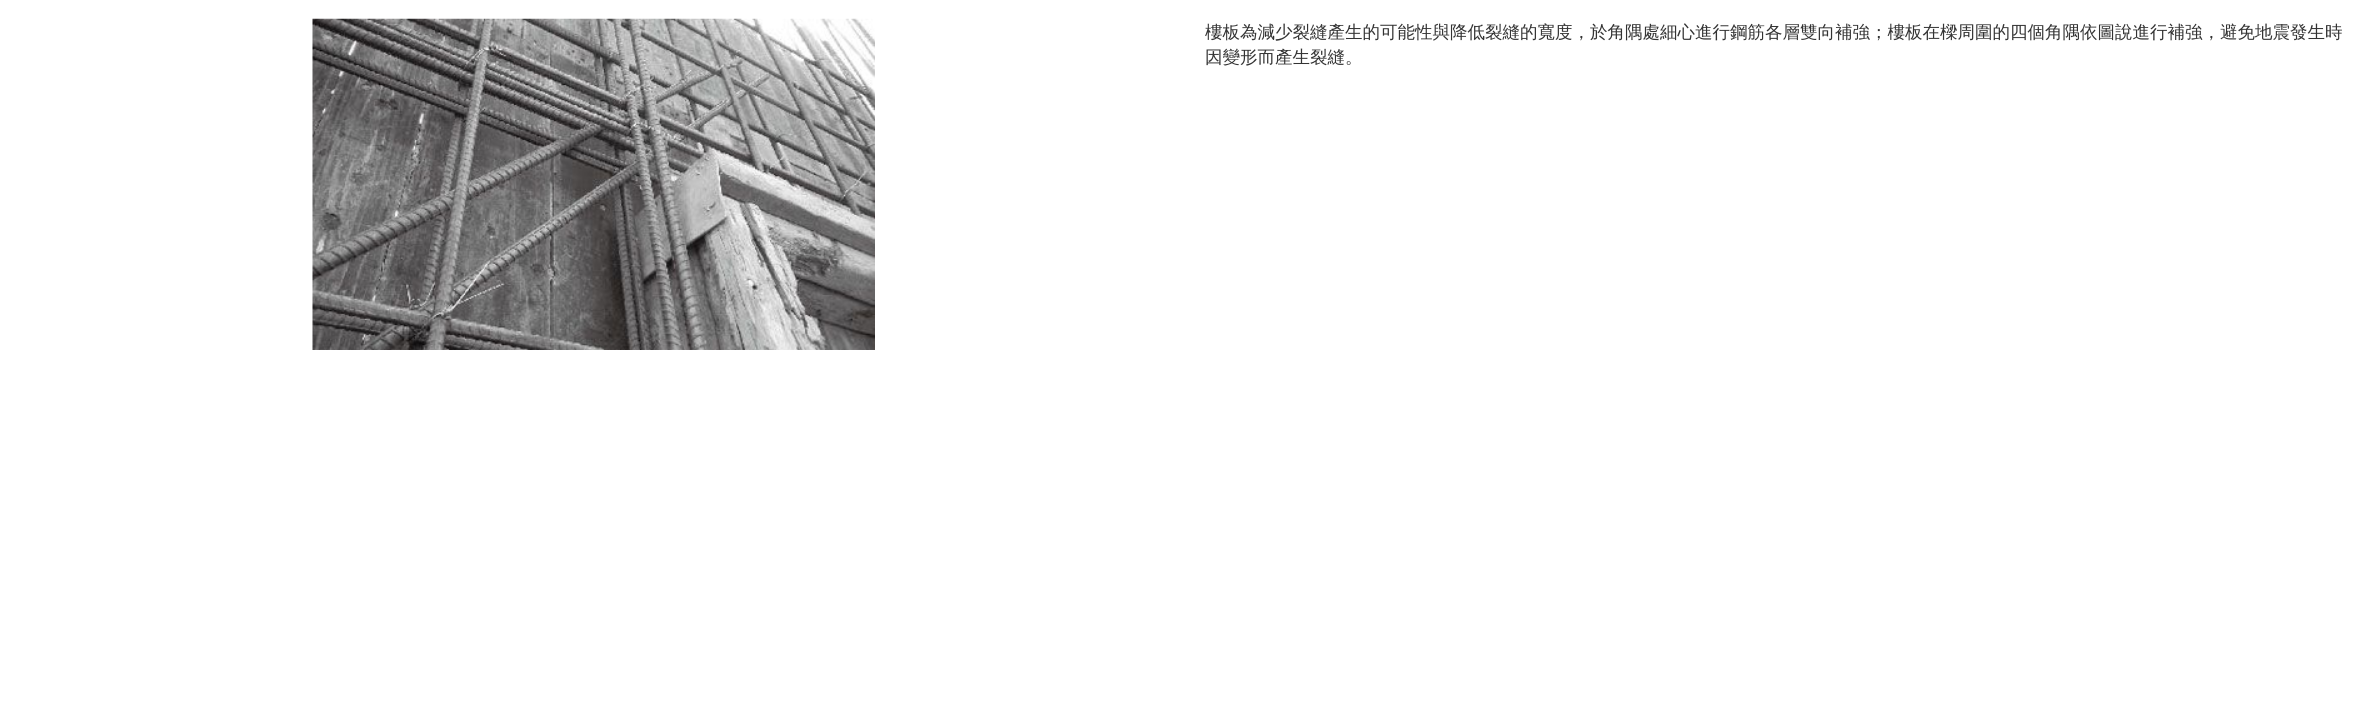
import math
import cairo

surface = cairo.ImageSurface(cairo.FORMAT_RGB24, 2372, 702)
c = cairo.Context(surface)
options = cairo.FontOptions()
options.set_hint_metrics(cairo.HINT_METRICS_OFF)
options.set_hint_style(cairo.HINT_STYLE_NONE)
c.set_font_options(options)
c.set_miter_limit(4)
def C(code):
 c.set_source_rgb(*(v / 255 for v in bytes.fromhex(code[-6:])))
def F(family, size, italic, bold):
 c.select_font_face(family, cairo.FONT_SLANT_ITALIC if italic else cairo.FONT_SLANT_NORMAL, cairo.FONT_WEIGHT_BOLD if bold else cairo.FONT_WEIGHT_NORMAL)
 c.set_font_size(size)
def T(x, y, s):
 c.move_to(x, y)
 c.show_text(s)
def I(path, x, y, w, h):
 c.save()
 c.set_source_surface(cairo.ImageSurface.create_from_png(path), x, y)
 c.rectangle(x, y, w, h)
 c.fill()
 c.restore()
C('ffffff')
c.paint()
I('1.png',312,18,563,332)
F('WenQuanYi Zen Hei Medium',17.5,0,0)
C('333333')
T(1205,38,'樓板為減少裂縫產生的可能性與降低裂縫的寬度，於角隅處細心進行鋼筋各層雙向補強；樓板在樑周圍的四個角隅依圖說進行補強，避免地震發生時')
T(1205,63,'因變形而產生裂縫。')
surface.write_to_png('o.png')
